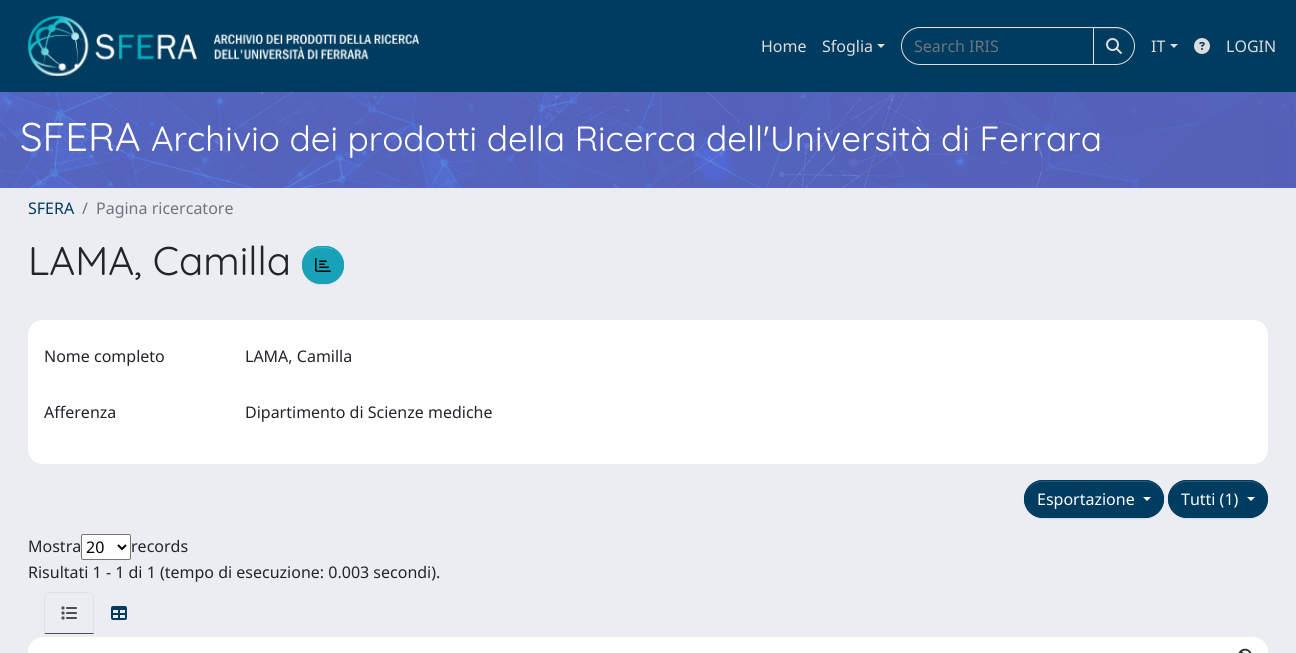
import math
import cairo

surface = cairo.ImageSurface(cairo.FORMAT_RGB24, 1296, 653)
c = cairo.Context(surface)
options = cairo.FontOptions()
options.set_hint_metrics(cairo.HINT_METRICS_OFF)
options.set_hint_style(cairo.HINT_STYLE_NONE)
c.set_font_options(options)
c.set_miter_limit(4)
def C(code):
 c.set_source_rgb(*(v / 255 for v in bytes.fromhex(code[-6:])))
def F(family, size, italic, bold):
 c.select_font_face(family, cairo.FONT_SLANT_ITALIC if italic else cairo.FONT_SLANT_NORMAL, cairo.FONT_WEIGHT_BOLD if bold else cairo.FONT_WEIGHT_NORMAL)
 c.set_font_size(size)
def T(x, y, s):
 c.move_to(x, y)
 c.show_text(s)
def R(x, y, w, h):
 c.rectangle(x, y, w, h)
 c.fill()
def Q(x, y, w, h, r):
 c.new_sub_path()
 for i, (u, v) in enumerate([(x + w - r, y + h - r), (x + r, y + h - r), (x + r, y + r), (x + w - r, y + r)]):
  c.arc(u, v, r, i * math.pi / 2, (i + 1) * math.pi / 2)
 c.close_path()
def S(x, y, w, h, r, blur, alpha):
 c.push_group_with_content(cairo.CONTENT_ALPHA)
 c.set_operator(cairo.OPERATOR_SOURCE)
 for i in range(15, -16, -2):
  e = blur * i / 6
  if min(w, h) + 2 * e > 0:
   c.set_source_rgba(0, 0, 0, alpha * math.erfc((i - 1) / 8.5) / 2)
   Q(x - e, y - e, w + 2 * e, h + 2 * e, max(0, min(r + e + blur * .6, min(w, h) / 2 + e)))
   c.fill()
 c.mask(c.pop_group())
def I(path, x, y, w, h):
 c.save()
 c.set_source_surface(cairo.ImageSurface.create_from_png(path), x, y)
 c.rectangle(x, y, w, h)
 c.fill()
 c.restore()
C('ecedf2')
c.paint()
C('003c5f')
R(0,0,1296,92)
I('1.png',28,16,391,60)
F('Noto Sans',16,0,0)
C('dddddd')
T(761,52,'Home')
T(822,52,'Sfoglia')
c.new_path()
c.move_to(877,44)
c.line_to(885,44)
c.line_to(881,48)
c.close_path()
c.fill()
c.new_path()
c.move_to(920,27.5)
c.line_to(1093.5,27.5)
c.line_to(1093.5,64.5)
c.line_to(920,64.5)
c.curve_to(910,64.5,901.5,56,901.5,46)
c.curve_to(901.5,36,910,27.5,920,27.5)
c.close_path()
c.set_line_width(1)
c.stroke()
C('6c757d')
T(914,52,'Search IRIS')
C('000000')
S(1093,28,42,38,19,.5,.07)
C('003c5f')
c.new_path()
c.move_to(1093,27)
c.line_to(1116,27)
c.curve_to(1126.5,27,1135,35.5,1135,46)
c.curve_to(1135,56.5,1126.5,65,1116,65)
c.line_to(1093,65)
c.close_path()
c.fill()
C('265977')
c.new_path()
c.move_to(1094,29)
c.line_to(1116,29)
c.curve_to(1126,29,1134,37,1134,46)
c.curve_to(1134,38,1128,30,1120,28)
c.line_to(1094,28)
c.close_path()
c.fill()
c.new_path()
c.move_to(1093.5,27.5)
c.line_to(1116,27.5)
c.curve_to(1126,27.5,1134.5,36,1134.5,46)
c.curve_to(1134.5,56,1126,64.5,1116,64.5)
c.line_to(1093.5,64.5)
c.close_path()
C('dddddd')
c.stroke()
I('2.png',1106,38,16,16)
T(1151,52,'IT')
c.new_path()
c.move_to(1170,44)
c.line_to(1178,44)
c.line_to(1174,48)
c.close_path()
c.fill()
I('3.png',1194,38,16,16)
T(1226,52,'LOGIN')
I('4.png',0,92,1296,96)
F('Quicksand',40,0,0)
C('ffffff')
T(20,151,'SFERA')
F('Quicksand',35,0,0)
T(151,151,'Archivio dei prodotti della Ricerca dell\'Università di Ferrara')
F('Noto Sans',16,0,0)
C('003c5f')
T(28,214,'SFERA')
C('6c757d')
T(82,214,'/')
T(96,214,'Pagina ricercatore')
F('Quicksand',40,0,0)
C('212529')
T(28,275,'LAMA, Camilla')
C('000000')
S(302,247,42,38,19,.5,.07)
C('17a2b8')
Q(302,246,42,38,19)
c.fill()
C('3ab0c3')
c.new_path()
c.move_to(321,248)
c.curve_to(331,248,340,250,343,262)
c.curve_to(339,239,300,243,303,267)
c.curve_to(302,258,309,248,321,248)
c.close_path()
c.fill()
Q(302.5,246.5,41,37,18.5)
C('17a2b8')
c.stroke()
I('5.png',315,258,16,14)
C('ffffff')
Q(28,320,1240,144,15)
c.fill()
F('Noto Sans',16,0,0)
C('212529')
T(44,362,'Nome completo')
T(245,362,'LAMA, Camilla')
T(44,418,'Afferenza')
T(245,418,'Dipartimento di Scienze mediche')
C('000000')
S(1024,481,140,38,19,.5,.07)
C('003c5f')
Q(1024,480,140,38,19)
c.fill()
C('265977')
c.new_path()
c.move_to(1043,482)
c.line_to(1145,482)
c.curve_to(1155,482,1163,490,1163,499)
c.curve_to(1163,489,1155,481,1145,481)
c.line_to(1043,481)
c.curve_to(1033,481,1025,489,1025,499)
c.curve_to(1025,490,1033,482,1043,482)
c.close_path()
c.fill()
Q(1024.5,480.5,139,37,18.5)
C('003c5f')
c.stroke()
C('ffffff')
T(1037,505,'Esportazione')
c.new_path()
c.move_to(1143,497)
c.line_to(1151,497)
c.line_to(1147,501)
c.close_path()
c.fill()
C('000000')
S(1168,481,100,38,19,.5,.07)
C('003c5f')
Q(1168,480,100,38,19)
c.fill()
C('265977')
c.new_path()
c.move_to(1187,482)
c.line_to(1249,482)
c.curve_to(1259,482,1267,490,1267,499)
c.curve_to(1267,491,1261,483,1253,481)
c.line_to(1239,481)
c.line_to(1183,481)
c.curve_to(1175,483,1169,491,1169,499)
c.curve_to(1169,490,1177,482,1187,482)
c.close_path()
c.fill()
Q(1168.5,480.5,99,37,18.5)
C('003c5f')
c.stroke()
C('ffffff')
T(1181,505,'Tutti (1)')
c.new_path()
c.move_to(1247,497)
c.line_to(1255,497)
c.line_to(1251,501)
c.close_path()
c.fill()
C('212529')
T(28,552,'Mostra')
C('ffffff')
Q(81.5,534.5,49,25,1.5)
c.fill_preserve()
C('767676')
c.stroke()
c.new_path()
c.move_to(118,545)
c.line_to(122,549)
c.line_to(126,545)
C('000000')
c.set_line_width(2)
c.stroke()
T(86,553,'20')
C('212529')
T(131,552,'records')
T(28,578,'Risultati 1 - 1 di 1 (tempo di esecuzione: 0.003 secondi).')
C('dee2e6')
c.new_path()
c.move_to(50,592)
c.curve_to(48,592,47,593,46,594)
c.curve_to(47,594,48,593,50,593)
c.line_to(88,593)
c.curve_to(90,593,91,594,92,594)
c.curve_to(91,593,90,592,88,592)
c.close_path()
c.move_to(94,634)
c.line_to(94,598)
c.curve_to(94,596,93,595,92,594)
c.curve_to(92,595,93,596,93,598)
c.line_to(93,633)
c.close_path()
c.fill()
C('495057')
c.new_path()
c.move_to(94,634)
c.line_to(93,633)
c.line_to(45,633)
c.line_to(44,634)
c.close_path()
c.fill()
C('dee2e6')
c.new_path()
c.move_to(44,634)
c.line_to(45,633)
c.line_to(45,598)
c.curve_to(45,596,46,595,46,594)
c.curve_to(45,595,44,596,44,598)
c.close_path()
c.fill()
I('6.png',61,606,16,14)
I('7.png',111,606,16,14)
C('ffffff')
Q(28,637,1240,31,15)
c.fill()
I('8.png',1238,648,14,5)
surface.write_to_png('o.png')
